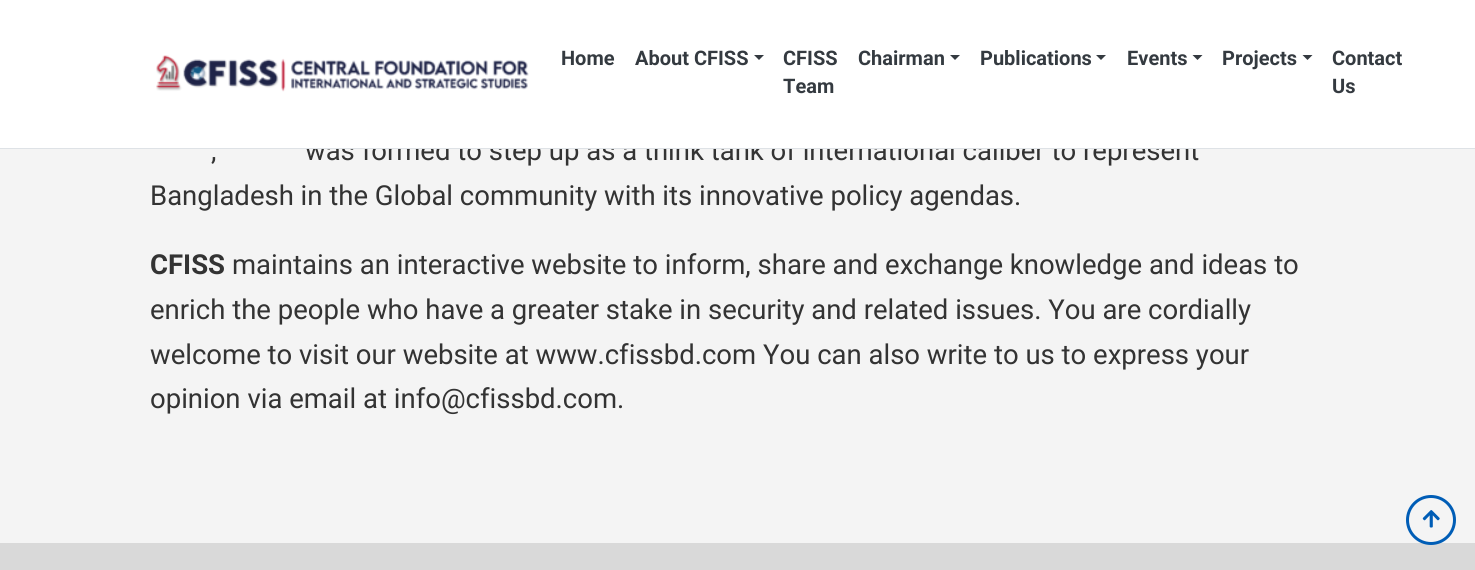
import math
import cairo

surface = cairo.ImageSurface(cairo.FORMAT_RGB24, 1475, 570)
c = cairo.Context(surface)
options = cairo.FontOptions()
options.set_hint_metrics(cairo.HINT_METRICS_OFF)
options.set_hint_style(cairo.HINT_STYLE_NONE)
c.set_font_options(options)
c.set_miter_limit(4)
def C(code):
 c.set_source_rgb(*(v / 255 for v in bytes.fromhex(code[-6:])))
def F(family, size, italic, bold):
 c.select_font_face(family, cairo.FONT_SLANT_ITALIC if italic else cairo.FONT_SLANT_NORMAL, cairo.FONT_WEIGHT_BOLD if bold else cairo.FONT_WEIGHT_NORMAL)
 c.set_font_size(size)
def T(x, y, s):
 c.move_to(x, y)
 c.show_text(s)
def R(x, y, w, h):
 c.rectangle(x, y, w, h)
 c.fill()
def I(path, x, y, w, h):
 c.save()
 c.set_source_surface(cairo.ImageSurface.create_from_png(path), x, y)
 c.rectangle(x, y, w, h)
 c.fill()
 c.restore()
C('f4f4f4')
c.paint()
F('Roboto',27.5,0,0)
C('333333')
T(305,160,'was formed to step up as a think tank of international caliber to represent')
C('ffffff')
R(0,0,1475,148)
C('dee2e6')
R(0,148,1475,1)
I('1.png',156,55,373,37)
F('Roboto',20,0,1)
C('343a40')
T(561,65,'Home')
T(635,65,'About CFISS')
c.new_path()
c.move_to(754,55)
c.line_to(764,55)
c.line_to(759,60)
c.close_path()
c.fill()
T(783,65,'CFISS')
T(783,93,'Team')
T(858,65,'Chairman')
c.new_path()
c.move_to(950,55)
c.line_to(960,55)
c.line_to(955,60)
c.close_path()
c.fill()
T(980,65,'Publications')
c.new_path()
c.move_to(1096,55)
c.line_to(1106,55)
c.line_to(1101,60)
c.close_path()
c.fill()
T(1127,65,'Events')
c.new_path()
c.move_to(1192.5,55)
c.line_to(1202.5,55)
c.line_to(1197.5,60)
c.close_path()
c.fill()
T(1222,65,'Projects')
c.new_path()
c.move_to(1302.5,55)
c.line_to(1312.5,55)
c.line_to(1307.5,60)
c.close_path()
c.fill()
T(1332,65,'Contact')
T(1332,93,'Us')
F('Roboto',27.5,0,0)
C('333333')
T(211,160,',')
T(150,205,'Bangladesh in the Global community with its innovative policy agendas.')
F('Roboto',27.5,0,1)
T(150,274,'CFISS')
F('Roboto',27.5,0,0)
T(232,274,'maintains an interactive website to inform, share and exchange knowledge and ideas to')
T(150,319,'enrich the people who have a greater stake in security and related issues. You are cordially')
T(150,364,'welcome to visit our website at www.cfissbd.com You can also write to us to express your')
T(150,408,'opinion via email at info@cfissbd.com.')
C('d9d9d9')
R(0,543,1475,27)
c.new_path()
c.arc(1431,520,23.5,0,2 * math.pi)
C('005db6')
c.set_line_width(3)
c.stroke()
I('2.png',1422,510,18,18)
surface.write_to_png('o.png')
